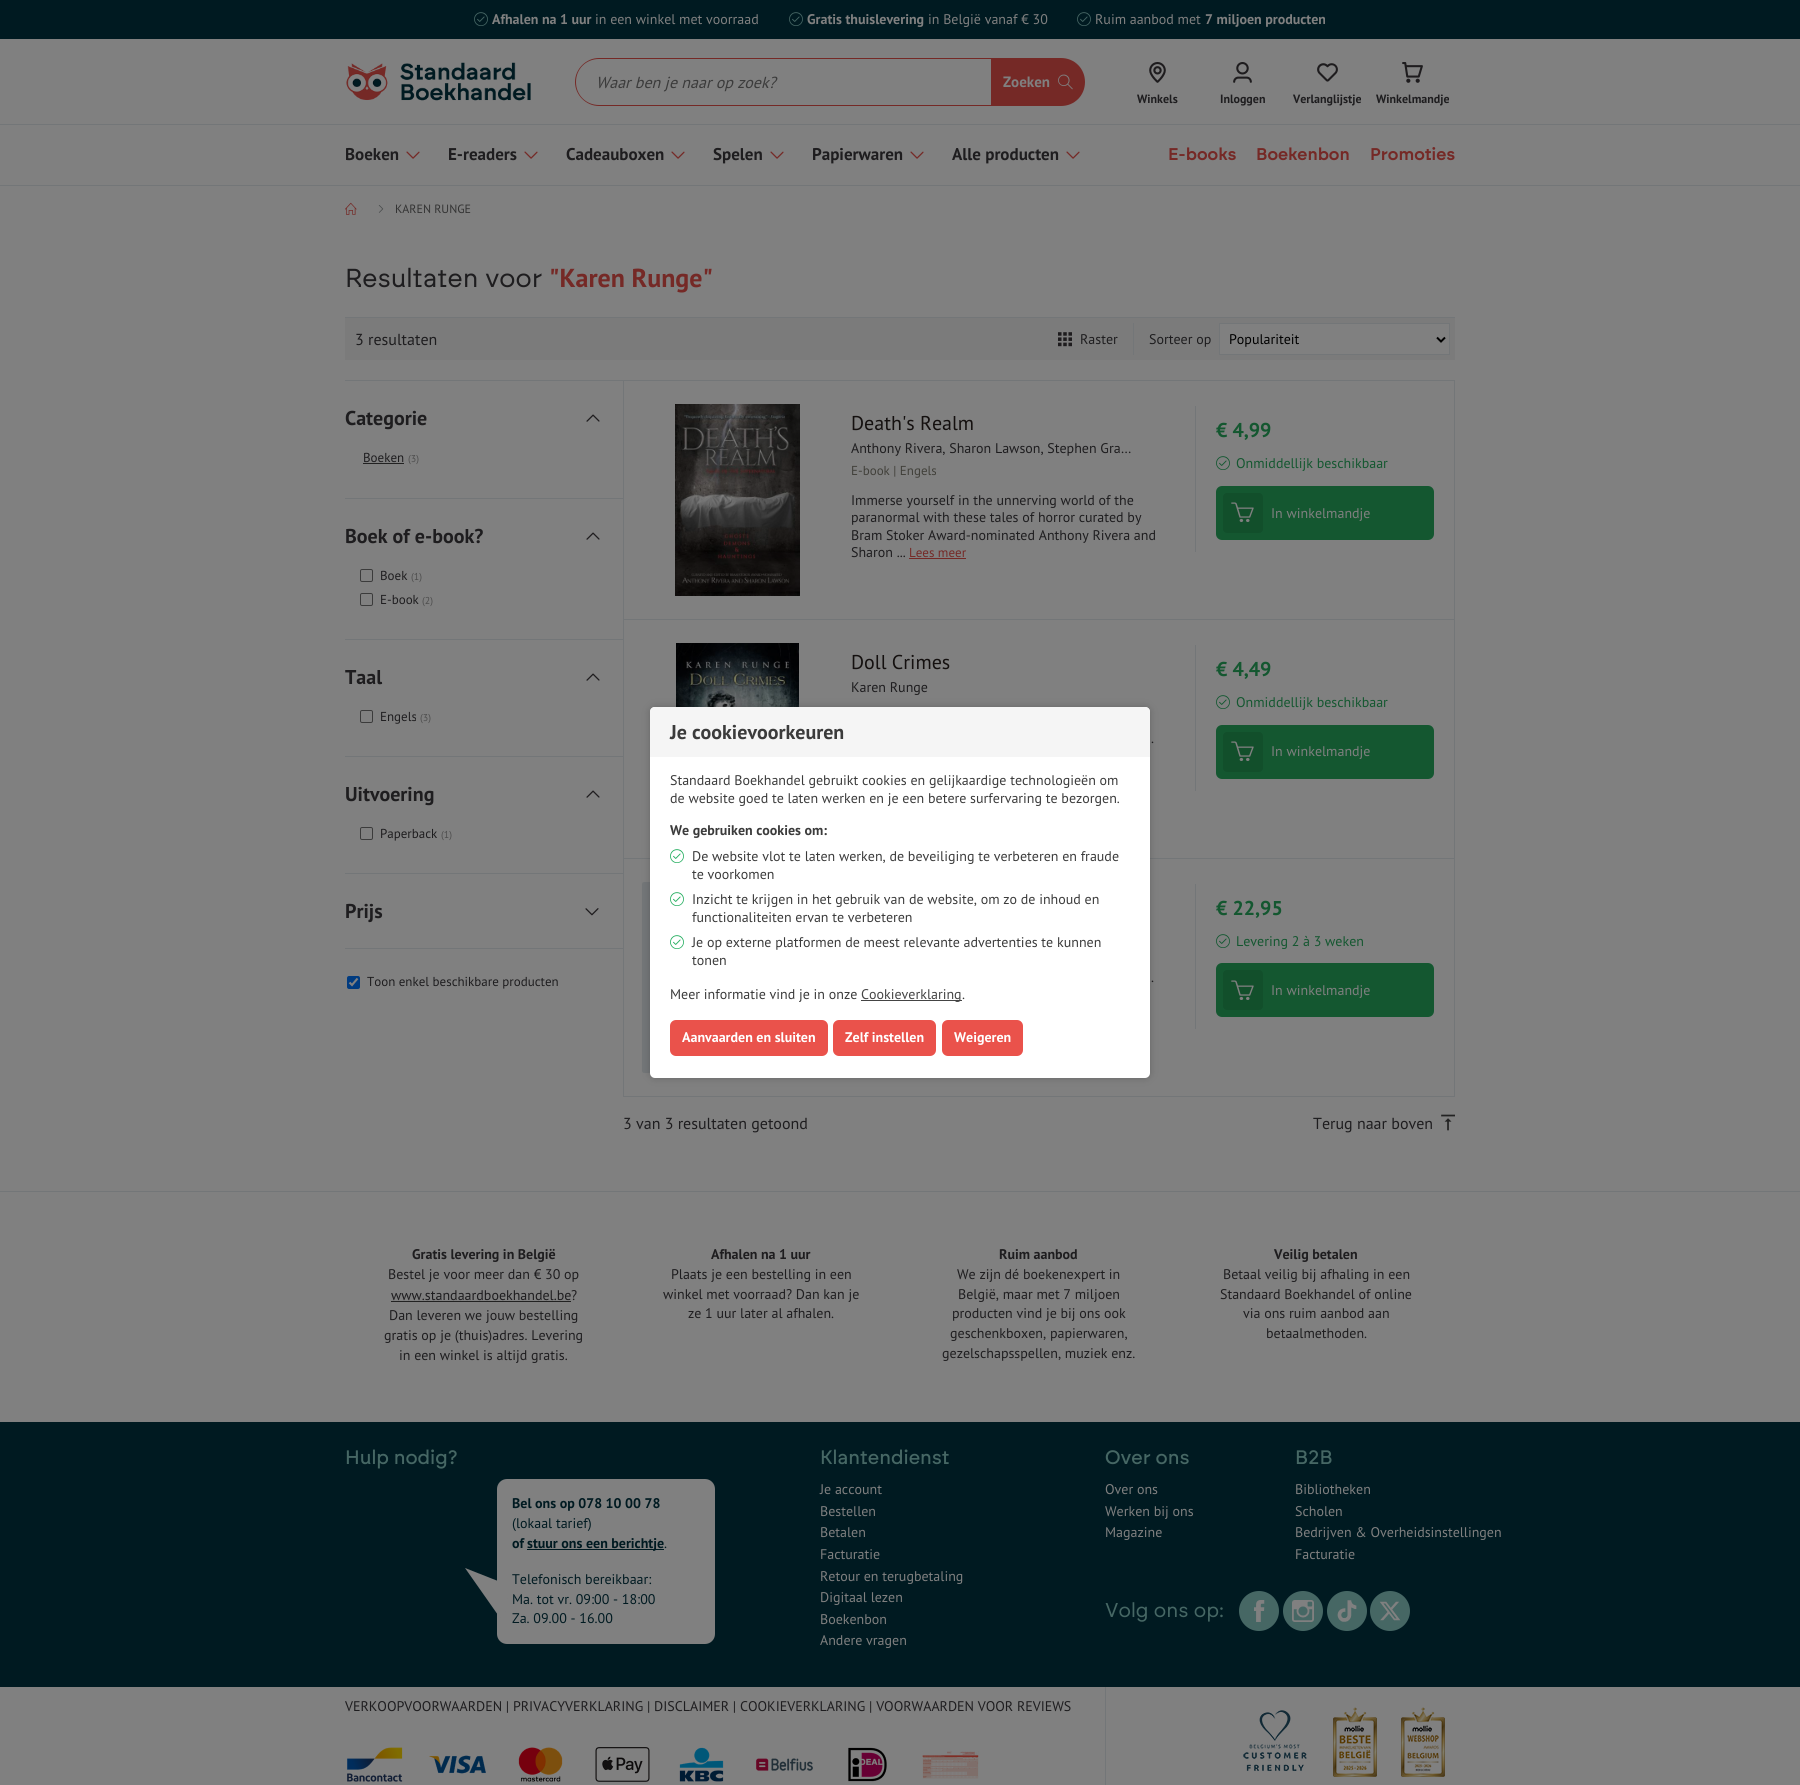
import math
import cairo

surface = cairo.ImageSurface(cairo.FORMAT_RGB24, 1800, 1785)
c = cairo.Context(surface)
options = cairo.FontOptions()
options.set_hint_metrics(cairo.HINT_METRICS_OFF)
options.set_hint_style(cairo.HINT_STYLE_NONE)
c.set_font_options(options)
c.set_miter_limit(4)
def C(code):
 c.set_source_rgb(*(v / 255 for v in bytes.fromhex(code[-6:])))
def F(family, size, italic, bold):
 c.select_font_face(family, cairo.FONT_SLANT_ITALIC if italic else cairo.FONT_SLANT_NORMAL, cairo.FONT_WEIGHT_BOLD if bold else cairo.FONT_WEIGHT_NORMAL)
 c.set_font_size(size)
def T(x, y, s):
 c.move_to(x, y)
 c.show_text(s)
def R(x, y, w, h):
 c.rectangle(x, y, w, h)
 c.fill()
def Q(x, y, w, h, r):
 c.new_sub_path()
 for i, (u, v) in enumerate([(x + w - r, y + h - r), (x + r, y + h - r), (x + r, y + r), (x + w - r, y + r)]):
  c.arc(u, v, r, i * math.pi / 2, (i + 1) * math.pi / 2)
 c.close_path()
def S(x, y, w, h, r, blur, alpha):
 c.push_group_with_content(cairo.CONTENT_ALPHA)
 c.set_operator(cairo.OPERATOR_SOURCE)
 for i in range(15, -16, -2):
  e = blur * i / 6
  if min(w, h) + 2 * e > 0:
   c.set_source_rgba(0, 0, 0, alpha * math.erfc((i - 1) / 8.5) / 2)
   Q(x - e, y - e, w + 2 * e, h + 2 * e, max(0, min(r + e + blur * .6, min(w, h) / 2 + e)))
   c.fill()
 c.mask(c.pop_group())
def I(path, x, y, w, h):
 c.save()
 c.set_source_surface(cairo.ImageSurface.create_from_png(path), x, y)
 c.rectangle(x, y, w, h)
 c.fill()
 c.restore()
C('808080')
c.paint()
C('001a21')
R(0,0,1800,39)
I('1.png',474,12,14,14)
F('PT Sans',14,0,1)
C('808080')
T(492,24,'Afhalen na 1 uur')
F('PT Sans',14,0,0)
T(595,24,'in een winkel met voorraad')
I('1.png',789,12,14,14)
F('PT Sans',14,0,1)
T(807,24,'Gratis thuislevering')
F('PT Sans',14,0,0)
T(928,24,'in België vanaf € 30')
I('1.png',1077,12,14,14)
T(1095,24,'Ruim aanbod met')
F('PT Sans',14,0,1)
T(1205,24,'7 miljoen producten')
I('2.png',346,62,185,39)
C('752926')
c.set_fill_rule(cairo.FILL_RULE_EVEN_ODD)
c.new_path()
c.move_to(599,58)
c.line_to(976,58)
c.line_to(976,106)
c.line_to(599,106)
c.curve_to(586,106,575,95,575,82)
c.curve_to(575,69,586,58,599,58)
c.close_path()
c.move_to(599,59)
c.line_to(976,59)
c.line_to(976,105)
c.line_to(599,105)
c.curve_to(586,105,576,95,576,82)
c.curve_to(576,69,586,59,599,59)
c.close_path()
c.fill()
F('PT Sans',16,1,0)
C('3b3b3b')
T(596,88,'Waar ben je naar op zoek?')
C('752926')
R(976,58,15,1)
R(976,105,15,1)
c.new_path()
c.move_to(991,58)
c.line_to(1061,58)
c.curve_to(1074.5,58,1085,68.5,1085,82)
c.curve_to(1085,95.5,1074.5,106,1061,106)
c.line_to(991,106)
c.close_path()
c.fill()
F('PT Sans',15,0,1)
C('808080')
T(1003,87,'Zoeken')
I('3.png',1058,74,15,16)
I('4.png',1149,62,17,21)
F('PT Sans',12,0,1)
C('1e1d1f')
T(1137,103,'Winkels')
I('5.png',1233,62,19,21)
T(1220,103,'Inloggen')
I('6.png',1317,63,21,19)
T(1293,103,'Verlanglijstje')
I('7.png',1402,62,21,21)
T(1376,103,'Winkelmandje')
C('737678')
R(0,124,1800,1)
R(0,185,1800,1)
F('PT Sans',17,0,1)
C('1e1d1f')
T(345,160,'Boeken')
I('8.png',406,151,14,8)
T(448,160,'E-readers')
I('8.png',524,151,14,8)
T(566,160,'Cadeauboxen')
I('8.png',671,151,14,8)
T(713,160,'Spelen')
I('8.png',770,151,14,8)
T(812,160,'Papierwaren')
I('8.png',910,151,14,8)
T(952,160,'Alle producten')
I('8.png',1066,151,14,8)
F('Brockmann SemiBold',17,0,0)
C('752926')
T(1168,160,'E-books')
T(1256,160,'Boekenbon')
T(1370,160,'Promoties')
I('9.png',345,202,12,13)
I('10.png',378,205,6,8)
F('PT Sans',12,0,0)
C('333333')
T(395,213,'KAREN RUNGE')
I('18.png',676,643,123,64)
C('737678')
R(623,858,832,1)
I('19.png',642,882,8,191)
C('000000')
S(650,707,500,371,5,4,.2)
C('ffffff')
Q(650,707,500,371,5)
c.fill()
C('f5f5f5')
c.new_path()
c.move_to(655,707)
c.line_to(1145,707)
c.curve_to(1148,707,1150,709,1150,712)
c.line_to(1150,757)
c.line_to(650,757)
c.line_to(650,712)
c.curve_to(650,709,652,707,655,707)
c.close_path()
c.fill()
F('PT Sans',20,0,1)
C('3b3b3b')
T(670,739,'Je cookievoorkeuren')
F('PT Sans',14,0,0)
T(670,785,'Standaard Boekhandel gebruikt cookies en gelijkaardige technologieën om')
T(670,803,'de website goed te laten werken en je een betere surfervaring te bezorgen.')
F('PT Sans',14,0,1)
T(670,835,'We gebruiken cookies om:')
I('11.png',670,849,14,14)
F('PT Sans',14,0,0)
T(692,861,'De website vlot te laten werken, de beveiliging te verbeteren en fraude')
T(692,879,'te voorkomen')
I('11.png',670,892,14,14)
T(692,904,'Inzicht te krijgen in het gebruik van de website, om zo de inhoud en')
T(692,922,'functionaliteiten ervan te verbeteren')
I('11.png',670,935,14,14)
T(692,947,'Je op externe platformen de meest relevante advertenties te kunnen')
T(692,965,'tonen')
T(670,999,'Meer informatie vind je in onze')
C('444444')
R(861,1000,101,1)
T(861,999,'Cookieverklaring')
C('3b3b3b')
T(962,999,'.')
C('ea524b')
Q(670,1020,158,36,6)
c.fill()
F('PT Sans',14,0,1)
C('ffffff')
T(682,1042,'Aanvaarden en sluiten')
C('ea524b')
Q(833,1020,103,36,6)
c.fill()
C('ffffff')
T(845,1042,'Zelf instellen')
C('ea524b')
Q(942,1020,81,36,6)
c.fill()
C('ffffff')
T(954,1042,'Weigeren')
C('737678')
R(345,317,1110,1)
F('Brockmann',26,0,0)
C('1e1d1f')
T(345,287,'Resultaten voor')
F('PT Sans',26,0,1)
C('752926')
T(549,287,'"Karen Runge"')
C('7b7b7b')
R(345,318,1110,42)
F('PT Sans',16,0,0)
C('1e1d1f')
T(355,345,'3 resultaten')
I('12.png',1058,332,14,15)
F('PT Sans',14,0,0)
T(1080,344,'Raster')
C('737678')
R(1133,323,1,32)
C('1e1d1f')
T(1149,344,'Sorteer op')
C('808080')
c.rectangle(1219.5,323.5,230,31)
c.fill_preserve()
C('737678')
c.set_line_width(1)
c.stroke()
c.new_path()
c.move_to(1437,337.5)
c.line_to(1441,341.5)
c.line_to(1445,337.5)
C('000000')
c.set_line_width(2)
c.stroke()
T(1229,344,'Populariteit')
C('737678')
R(345,380,1110,1)
F('PT Sans',20,0,1)
C('1e1d1f')
T(345,425,'Categorie')
I('13.png',586,414,14,8)
F('PT Sans',13,0,0)
T(363,462,'Boeken')
C('222222')
R(363,463,41,1)
F('PT Sans',10,0,0)
C('4d4d4d')
T(408,462,'(3)')
C('737678')
R(345,498,278,1)
F('PT Sans',20,0,1)
C('1e1d1f')
T(345,543,'Boek of e-book?')
I('13.png',586,532,14,8)
Q(360.5,569.5,12,12,1.5)
C('3b3b3b')
c.set_line_width(1)
c.stroke()
F('PT Sans',13,0,0)
C('1e1d1f')
T(380,580,'Boek')
F('PT Sans',10,0,0)
C('4d4d4d')
T(411,580,'(1)')
Q(360.5,593.5,12,12,1.5)
C('3b3b3b')
c.stroke()
F('PT Sans',13,0,0)
C('1e1d1f')
T(380,604,'E-book')
F('PT Sans',10,0,0)
C('4d4d4d')
T(422,604,'(2)')
C('737678')
R(345,639,278,1)
F('PT Sans',20,0,1)
C('1e1d1f')
T(345,684,'Taal')
I('13.png',586,673,14,8)
Q(360.5,710.5,12,12,1.5)
C('3b3b3b')
c.stroke()
F('PT Sans',13,0,0)
C('1e1d1f')
T(380,721,'Engels')
F('PT Sans',10,0,0)
C('4d4d4d')
T(420,721,'(3)')
C('737678')
R(345,756,278,1)
F('PT Sans',20,0,1)
C('1e1d1f')
T(345,801,'Uitvoering')
I('13.png',586,790,14,8)
Q(360.5,827.5,12,12,1.5)
C('3b3b3b')
c.stroke()
F('PT Sans',13,0,0)
C('1e1d1f')
T(380,838,'Paperback')
F('PT Sans',10,0,0)
C('4d4d4d')
T(441,838,'(1)')
C('737678')
R(345,873,278,1)
F('PT Sans',20,0,1)
C('1e1d1f')
T(345,918,'Prijs')
I('14.png',585,908,14,8)
C('737678')
R(345,948,278,1)
C('003b80')
Q(347,976,13,13,2)
c.fill()
c.new_path()
c.move_to(349.5,982.5)
c.line_to(352,985)
c.line_to(357.5,978.5)
C('808080')
c.set_line_width(2.1)
c.stroke()
F('PT Sans',13,0,0)
C('1e1d1f')
T(367,986,'Toon enkel beschikbare producten')
C('737678')
R(1454,380,1,239)
R(623,380,1,239)
I('15.png',675,404,125,192)
F('PT Sans',20,0,0)
C('14100f')
T(851,430,'Death\'s Realm')
F('PT Sans',14,0,0)
C('1e1d1f')
T(851,453,'Anthony Rivera, Sharon Lawson, Stephen Gra…')
F('PT Sans',13,0,0)
C('41403a')
T(851,475,'E-book | Engels')
F('PT Sans',14,0,0)
C('1e1d1f')
T(851,505,'Immerse yourself in the unnerving world of the')
T(851,522,'paranormal with these tales of horror curated by')
T(851,540,'Bram Stoker Award-nominated Anthony Rivera and')
T(851,557,'Sharon ...')
F('PT Sans',13,0,0)
C('752926')
T(909,557,'Lees meer')
R(909,558,57,1)
C('737678')
R(1195,406,1,146)
F('PT Sans',20,0,1)
C('145730')
T(1216,437,'€ 4,99')
I('16.png',1216,456,14,14)
F('PT Sans',14,0,0)
T(1236,468,'Onmiddellijk beschikbaar')
Q(1216,486,218,54,6)
c.fill()
C('124f2b')
Q(1223,493,40,40,4)
c.fill()
I('17.png',1231,502,23,20)
C('808080')
T(1271,518,'In winkelmandje')
C('737678')
R(623,619,832,1)
R(1454,619,1,239)
R(623,619,1,239)
F('PT Sans',20,0,0)
C('14100f')
T(851,669,'Doll Crimes')
F('PT Sans',14,0,0)
C('1e1d1f')
T(851,692,'Karen Runge')
T(1151,743,'.')
C('737678')
R(1195,645,1,146)
F('PT Sans',20,0,1)
C('145730')
T(1216,676,'€ 4,49')
I('16.png',1216,695,14,14)
F('PT Sans',14,0,0)
T(1236,707,'Onmiddellijk beschikbaar')
Q(1216,725,218,54,6)
c.fill()
C('124f2b')
Q(1223,732,40,40,4)
c.fill()
I('17.png',1231,741,23,20)
C('808080')
T(1271,756,'In winkelmandje')
C('737678')
R(623,1096,832,1)
R(1454,858,1,238)
R(623,858,1,238)
C('1e1d1f')
T(1151,982,'.')
C('737678')
R(1195,884,1,145)
F('PT Sans',20,0,1)
C('145730')
T(1216,915,'€ 22,95')
I('16.png',1216,934,14,14)
F('PT Sans',14,0,0)
T(1236,946,'Levering 2 à 3 weken')
Q(1216,963,218,54,6)
c.fill()
C('124f2b')
Q(1223,970,40,40,4)
c.fill()
I('17.png',1231,980,23,20)
C('808080')
T(1271,995,'In winkelmandje')
F('PT Sans',16,0,0)
C('1e1d1f')
T(623,1129,'3 van 3 resultaten getoond')
T(1313,1129,'Terug naar boven')
I('20.png',1441,1114,14,17)
C('737678')
R(0,1191,1800,1)
F('PT Sans',14,0,1)
C('1e1d1f')
T(412,1259,'Gratis levering in België')
F('PT Sans',14,0,0)
T(388,1279,'Bestel je voor meer dan € 30 op')
T(391,1300,'www.standaardboekhandel.be')
C('222222')
R(391,1301,180,1)
C('1e1d1f')
T(571,1300,'?')
T(389,1320,'Dan leveren we jouw bestelling')
T(384,1340,'gratis op je (thuis)adres. Levering')
T(399,1360,'in een winkel is altijd gratis.')
F('PT Sans',14,0,1)
T(711,1259,'Afhalen na 1 uur')
F('PT Sans',14,0,0)
T(671,1279,'Plaats je een bestelling in een')
T(663,1299,'winkel met voorraad? Dan kan je')
T(688,1318,'ze 1 uur later al afhalen.')
F('PT Sans',14,0,1)
T(999,1259,'Ruim aanbod')
F('PT Sans',14,0,0)
T(957,1279,'We zijn dé boekenexpert in')
T(958,1299,'België, maar met 7 miljoen')
T(952,1318,'producten vind je bij ons ook')
T(950,1338,'geschenkboxen, papierwaren,')
T(942,1358,'gezelschapsspellen, muziek enz.')
F('PT Sans',14,0,1)
T(1274,1259,'Veilig betalen')
F('PT Sans',14,0,0)
T(1223,1279,'Betaal veilig bij afhaling in een')
T(1220,1299,'Standaard Boekhandel of online')
T(1243,1318,'via ons ruim aanbod aan')
T(1266,1338,'betaalmethoden.')
C('001a21')
R(0,1422,1800,265)
F('Brockmann Medium',19.5,0,0)
C('466764')
T(345,1464,'Hulp nodig?')
C('808080')
Q(497,1479,218,165,10)
c.fill()
c.set_fill_rule(cairo.FILL_RULE_WINDING)
c.new_path()
c.move_to(508,1585)
c.line_to(505,1625)
c.line_to(465,1568)
c.close_path()
c.fill()
F('PT Sans',14,0,1)
C('001a21')
T(512,1508,'Bel ons op 078 10 00 78')
F('PT Sans',14,0,0)
T(512,1528,'(lokaal tarief)')
F('PT Sans',14,0,1)
T(512,1548,'of')
R(527,1549,137,1)
T(527,1548,'stuur ons een berichtje')
F('PT Sans',14,0,0)
T(664,1548,'.')
T(512,1584,'Telefonisch bereikbaar:')
T(512,1604,'Ma. tot vr. 09:00 - 18:00')
T(512,1623,'Za. 09.00 - 16.00')
F('Brockmann Medium',19.5,0,0)
C('466764')
T(820,1464,'Klantendienst')
F('PT Sans',14,0,0)
C('808080')
T(820,1494,'Je account')
T(820,1516,'Bestellen')
T(820,1537,'Betalen')
T(820,1559,'Facturatie')
T(820,1581,'Retour en terugbetaling')
T(820,1602,'Digitaal lezen')
T(820,1624,'Boekenbon')
T(820,1645,'Andere vragen')
F('Brockmann Medium',19.5,0,0)
C('466764')
T(1105,1464,'Over ons')
F('PT Sans',14,0,0)
C('808080')
T(1105,1494,'Over ons')
T(1105,1516,'Werken bij ons')
T(1105,1537,'Magazine')
F('Brockmann Medium',19.5,0,0)
C('466764')
T(1295,1464,'B2B')
F('PT Sans',14,0,0)
C('808080')
T(1295,1494,'Bibliotheken')
T(1295,1516,'Scholen')
T(1295,1537,'Bedrijven & Overheidsinstellingen')
T(1295,1559,'Facturatie')
F('Brockmann',20,0,0)
C('466764')
T(1105,1617,'Volg ons op:')
c.new_path()
c.arc(1259,1611,20,0,2 * math.pi)
c.fill()
I('21.png',1254,1600,11,22)
c.arc(1303,1611,20,0,2 * math.pi)
c.fill()
I('22.png',1292,1600,22,22)
c.arc(1347,1611,20,0,2 * math.pi)
c.fill()
I('23.png',1337,1600,20,22)
c.arc(1390,1611,20,0,2 * math.pi)
c.fill()
I('24.png',1379,1601,22,20)
F('PT Sans',14,0,0)
C('1e1d1f')
T(345,1711,'VERKOOPVOORWAARDEN | PRIVACYVERKLARING | DISCLAIMER | COOKIEVERKLARING | VOORWAARDEN VOOR REVIEWS')
I('25.png',347,1747,56,35)
I('26.png',429,1755,57,19)
I('27.png',518,1747,45,35)
I('28.png',595,1747,55,35)
I('29.png',679,1747,45,35)
I('30.png',756,1758,57,13)
I('31.png',848,1747,39,35)
I('32.png',922,1751,57,28)
C('737678')
R(1105,1687,1,98)
I('33.png',1243,1710,64,61)
I('34.png',1333,1707,44,70)
I('35.png',1401,1707,44,70)
surface.write_to_png('o.png')
